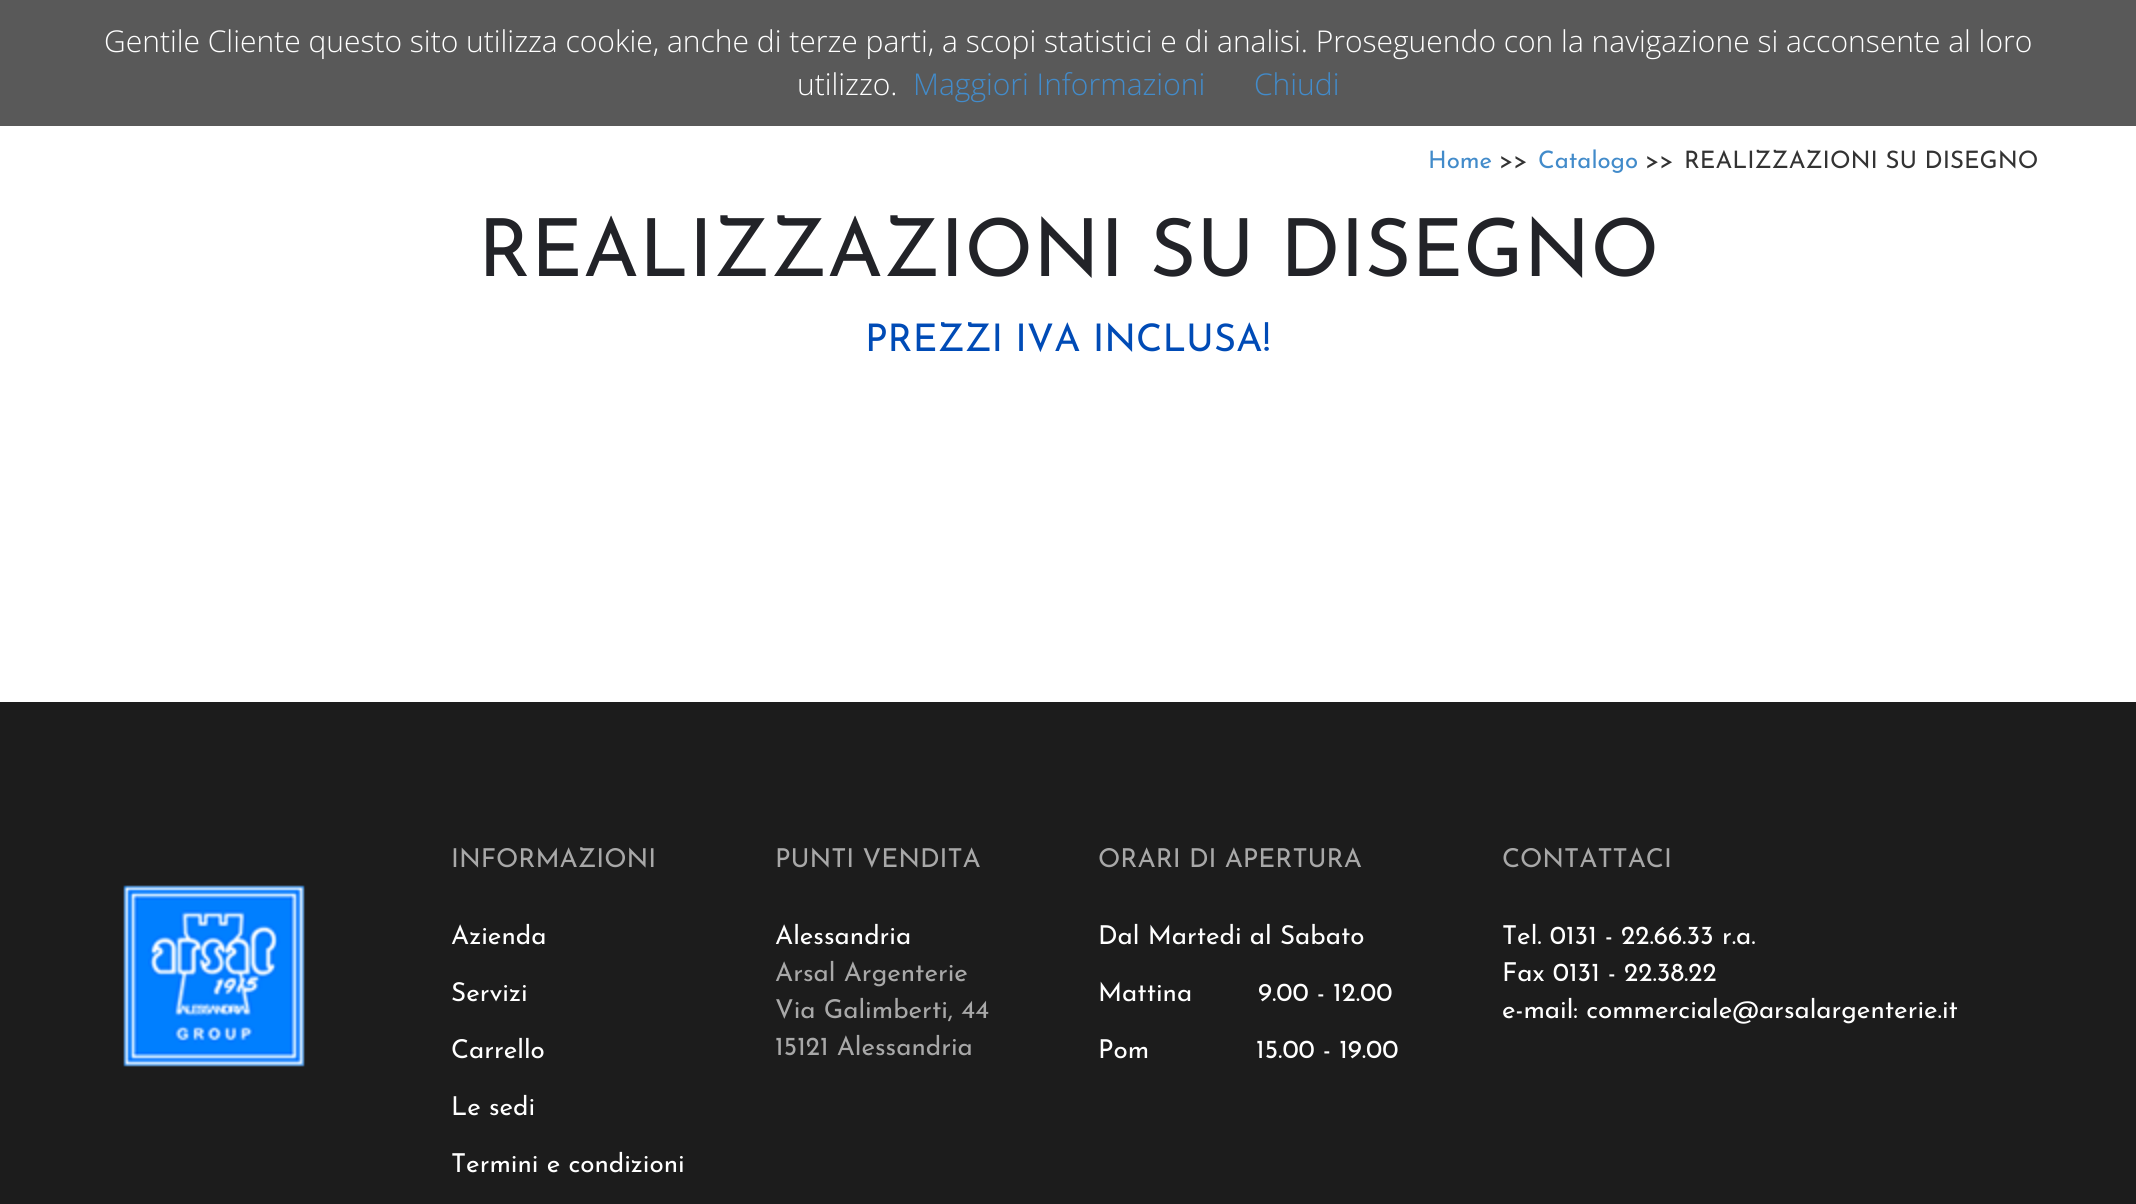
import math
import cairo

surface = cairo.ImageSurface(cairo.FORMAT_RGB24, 2136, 1204)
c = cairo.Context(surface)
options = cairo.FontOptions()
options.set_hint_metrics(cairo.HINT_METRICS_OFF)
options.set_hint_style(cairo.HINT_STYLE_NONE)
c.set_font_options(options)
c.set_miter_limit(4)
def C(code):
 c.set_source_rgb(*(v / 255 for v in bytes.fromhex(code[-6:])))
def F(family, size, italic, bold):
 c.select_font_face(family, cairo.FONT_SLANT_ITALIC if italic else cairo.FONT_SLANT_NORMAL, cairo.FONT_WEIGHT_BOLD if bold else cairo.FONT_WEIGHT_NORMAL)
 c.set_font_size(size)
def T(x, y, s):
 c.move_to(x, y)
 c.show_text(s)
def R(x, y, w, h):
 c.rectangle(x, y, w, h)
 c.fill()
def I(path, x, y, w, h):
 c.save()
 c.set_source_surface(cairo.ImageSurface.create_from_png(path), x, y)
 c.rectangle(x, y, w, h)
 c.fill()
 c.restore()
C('ffffff')
c.paint()
C('595959')
R(0,0,2136,126)
F('Open Sans Light',30,0,0)
C('ffffff')
T(104,52,'Gentile Cliente questo sito utilizza cookie, anche di terze parti, a scopi statistici e di analisi. Proseguendo con la navigazione si acconsente al loro')
T(797,95,'utilizzo.')
C('428bca')
T(913,95,'Maggiori Informazioni')
T(1254,95,'Chiudi')
F('Josefin Sans Thin',24,0,0)
T(1428,168,'Home')
C('333333')
T(1499,168,'>>')
C('428bca')
T(1538,168,'Catalogo')
C('333333')
T(1645,168,'>>')
T(1684,168,'REALIZZAZIONI SU DISEGNO')
F('Josefin Sans Thin',80,0,0)
C('222328')
T(478,276,'REALIZZAZIONI SU DISEGNO')
F('Josefin Sans Thin',38,0,0)
C('004bb6')
T(865,351,'PREZZI IVA INCLUSA!')
C('1c1c1c')
R(0,702,2136,502)
I('1.png',123,885,182,182)
F('Josefin Sans Thin',26,0,0)
C('a8a8a8')
T(451,867,'INFORMAZIONI')
C('ffffff')
T(451,944,'Azienda')
T(451,1001,'Servizi')
T(451,1058,'Carrello')
T(451,1115,'Le sedi')
T(451,1172,'Termini e condizioni')
C('a8a8a8')
T(775,867,'PUNTI VENDITA')
C('ffffff')
T(775,944,'Alessandria')
C('a8a8a8')
T(775,981,'Arsal Argenterie')
T(775,1018,'Via Galimberti, 44')
T(775,1055,'15121 Alessandria')
T(1098,867,'ORARI DI APERTURA')
C('ffffff')
T(1098,944,'Dal Martedi al Sabato')
T(1098,1001,'Mattina        9.00 - 12.00')
T(1098,1058,'Pom             15.00 - 19.00')
C('a8a8a8')
T(1502,867,'CONTATTACI')
C('ffffff')
T(1502,944,'Tel. 0131 - 22.66.33 r.a.')
T(1502,981,'Fax 0131 - 22.38.22')
T(1502,1018,'e-mail: commerciale@arsalargenterie.it')
surface.write_to_png('o.png')
